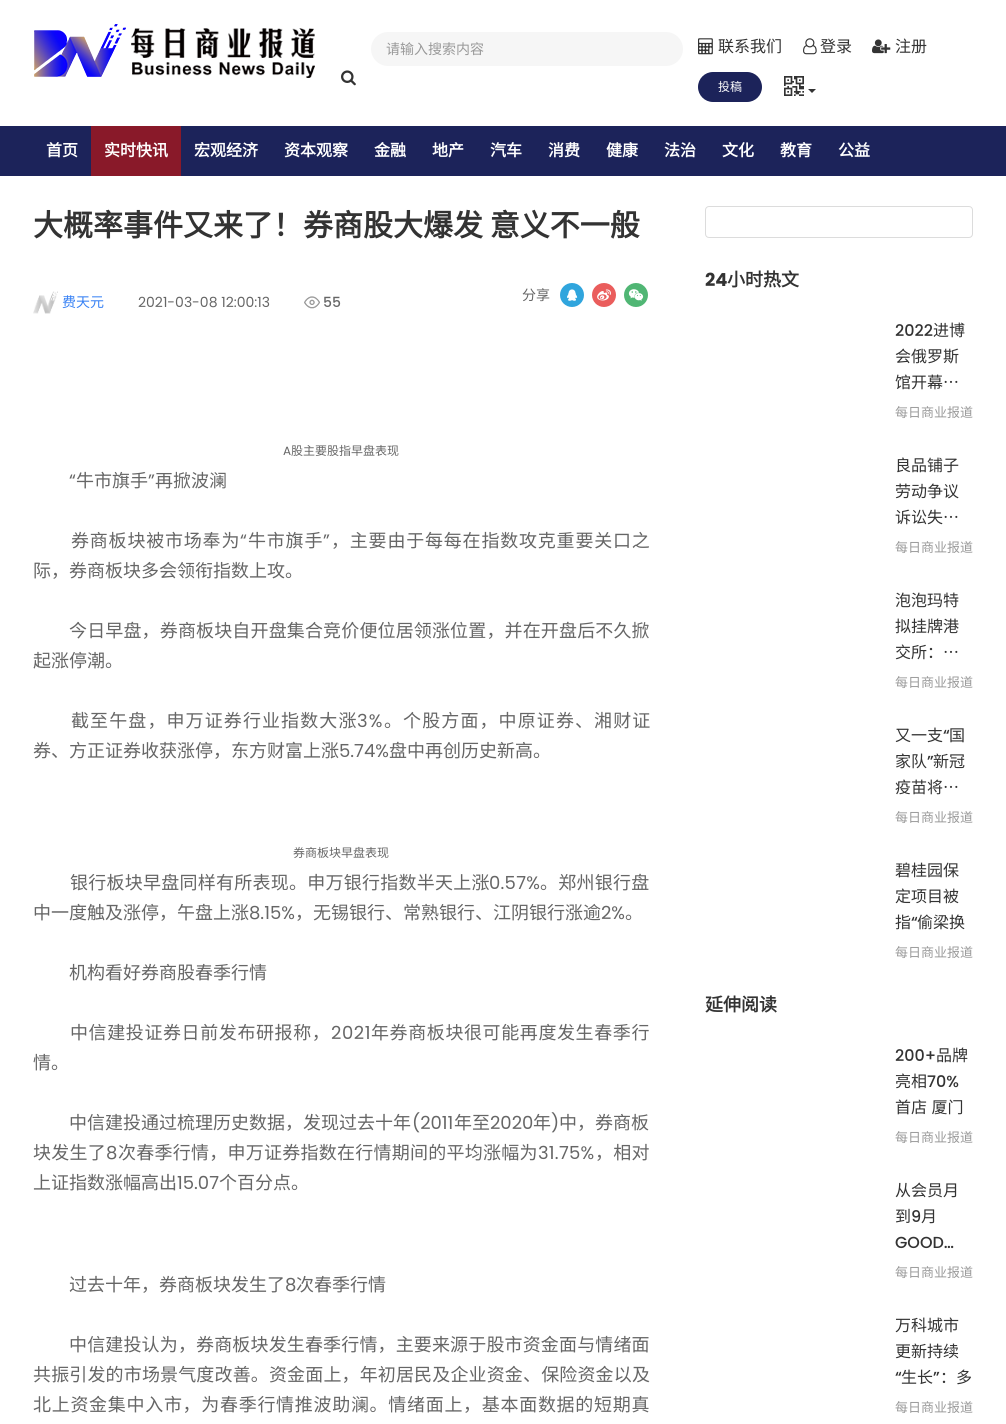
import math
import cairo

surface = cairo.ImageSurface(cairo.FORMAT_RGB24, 1006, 1424)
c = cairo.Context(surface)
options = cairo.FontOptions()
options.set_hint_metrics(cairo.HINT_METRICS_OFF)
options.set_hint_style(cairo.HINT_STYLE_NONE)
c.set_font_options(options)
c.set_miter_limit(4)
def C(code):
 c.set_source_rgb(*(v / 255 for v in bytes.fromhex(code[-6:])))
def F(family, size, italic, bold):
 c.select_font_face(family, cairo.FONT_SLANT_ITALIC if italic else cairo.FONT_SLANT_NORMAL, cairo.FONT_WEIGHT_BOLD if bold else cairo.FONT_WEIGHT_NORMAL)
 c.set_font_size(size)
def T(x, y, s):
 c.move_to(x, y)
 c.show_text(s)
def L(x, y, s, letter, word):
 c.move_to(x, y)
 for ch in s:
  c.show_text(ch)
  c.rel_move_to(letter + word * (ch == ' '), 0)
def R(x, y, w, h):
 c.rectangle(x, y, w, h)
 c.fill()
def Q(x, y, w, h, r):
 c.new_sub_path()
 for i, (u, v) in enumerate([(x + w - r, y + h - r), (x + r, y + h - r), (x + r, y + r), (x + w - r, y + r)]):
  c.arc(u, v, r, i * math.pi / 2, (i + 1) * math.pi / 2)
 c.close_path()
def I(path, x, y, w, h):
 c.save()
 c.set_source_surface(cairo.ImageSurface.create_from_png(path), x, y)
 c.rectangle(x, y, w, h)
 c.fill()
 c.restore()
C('ffffff')
c.paint()
I('1.png',34,24,281,54)
C('f6f6f6')
Q(371,32,312,34,17)
c.fill()
F('Noto Sans CJK SC',14,0,0)
C('999999')
T(386,54,'请输入搜索内容')
I('2.png',341,70,15,16)
I('3.png',698,38,15,17)
F('Noto Sans CJK SC',16,0,0)
C('333333')
T(718,52,'联系我们')
I('4.png',803,38,14,17)
T(820,52,'登录')
I('5.png',872,39,19,15)
T(895,52,'注册')
C('1c235a')
Q(698,72,64,30,15)
c.fill()
F('Noto Sans CJK SC',12,0,0)
C('ffffff')
T(718,91,'投稿')
I('6.png',784,76,20,20)
C('333333')
c.new_path()
c.move_to(808,89)
c.line_to(816,89)
c.line_to(812,93)
c.close_path()
c.fill()
C('1c235a')
R(0,126,1006,50)
F('Noto Sans CJK SC',16,0,1)
C('ffffff')
T(46,156,'首页')
C('891929')
R(91,126,90,50)
C('ffffff')
T(104,156,'实时快讯')
T(194,156,'宏观经济')
T(284,156,'资本观察')
T(374,156,'金融')
T(432,156,'地产')
T(490,156,'汽车')
T(548,156,'消费')
T(606,156,'健康')
T(664,156,'法治')
T(722,156,'文化')
T(780,156,'教育')
T(838,156,'公益')
F('Noto Sans CJK SC',30,0,1)
C('333333')
T(33,236,'大概率事件又来了！券商股大爆发 意义不一般')
I('7.png',33,291,25,23)
F('Noto Sans CJK SC',14,0,0)
C('3781f4')
T(62,307,'费天元')
F('Poppins',14,0,0)
C('666666')
T(138,307,'2021-03-08 12:00:13')
I('8.png',304,296,16,13)
F('Poppins Medium',14,0,0)
T(323,307,'55')
F('Noto Sans CJK SC',14,0,0)
T(522,300,'分享')
I('9.png',560,283,24,24)
I('10.png',592,283,24,24)
I('11.png',624,283,24,24)
F('Poppins',12,0,0)
T(283,455,'A')
F('Noto Sans CJK SC',12,0,0)
T(291,455,'股主要股指早盘表现')
F('Poppins',18,0,0)
T(69,487,'“')
F('Noto Sans CJK SC',18,0,0)
T(76,487,'牛市旗手')
F('Poppins',18,0,0)
T(148,487,'”')
F('Noto Sans CJK SC',18,0,0)
T(155,487,'再掀波澜')
L(71,547,'券商板块被市场奉为',.8,0)
F('Poppins',18,0,0)
L(240,547,'“',.8,0)
F('Noto Sans CJK SC',18,0,0)
L(248,547,'牛市旗手',.8,0)
F('Poppins',18,0,0)
L(323,547,'”',.8,0)
F('Noto Sans CJK SC',18,0,0)
L(331,547,'，主要由于每每在指数攻克重要关口之',.8,0)
T(33,577,'际，券商板块多会领衔指数上攻。')
L(69,637,'今日早盘，券商板块自开盘集合竞价便位居领涨位置，并在开盘后不久掀',.15,0)
T(33,667,'起涨停潮。')
L(71,727,'截至午盘，申万证券行业指数大涨',1.1,0)
F('Poppins',18,0,0)
L(357,727,'3%',1.1,0)
F('Noto Sans CJK SC',18,0,0)
L(384,727,'。个股方面，中原证券、湘财证',1.1,0)
T(33,757,'券、方正证券收获涨停，东方财富上涨')
F('Poppins',18,0,0)
T(339,757,'5.74%')
F('Noto Sans CJK SC',18,0,0)
T(389,757,'盘中再创历史新高。')
F('Noto Sans CJK SC',12,0,0)
T(293,857,'券商板块早盘表现')
F('Noto Sans CJK SC',18,0,0)
L(70,889,'银行板块早盘同样有所表现。申万银行指数半天上涨',.25,0)
F('Poppins',18,0,0)
L(489,889,'0.57%',.25,0)
F('Noto Sans CJK SC',18,0,0)
L(540,889,'。郑州银行盘',.25,0)
T(33,919,'中一度触及涨停，午盘上涨')
F('Poppins',18,0,0)
T(249,919,'8.15%')
F('Noto Sans CJK SC',18,0,0)
T(295,919,'，无锡银行、常熟银行、江阴银行涨逾')
F('Poppins',18,0,0)
T(601,919,'2%')
F('Noto Sans CJK SC',18,0,0)
T(625,919,'。')
T(69,979,'机构看好券商股春季行情')
L(70,1039,'中信建投证券日前发布研报称，',.6,0)
F('Poppins',18,0,0)
L(331,1039,'2021',.6,0)
F('Noto Sans CJK SC',18,0,0)
L(371,1039,'年券商板块很可能再度发生春季行',.6,0)
T(33,1069,'情。')
T(69,1129,'中信建投通过梳理历史数据，发现过去十年')
F('Poppins',18,0,0)
T(412,1129,'(2011')
F('Noto Sans CJK SC',18,0,0)
T(454,1129,'年至')
F('Poppins',18,0,0)
T(490,1129,'2020')
F('Noto Sans CJK SC',18,0,0)
T(533,1129,'年')
F('Poppins',18,0,0)
T(551,1129,')')
F('Noto Sans CJK SC',18,0,0)
T(559,1129,'中，券商板')
L(33,1159,'块发生了',.25,0)
F('Poppins',18,0,0)
L(106,1159,'8',.25,0)
F('Noto Sans CJK SC',18,0,0)
L(118,1159,'次春季行情，申万证券指数在行情期间的平均涨幅为',.25,0)
F('Poppins',18,0,0)
L(538,1159,'31.75%',.25,0)
F('Noto Sans CJK SC',18,0,0)
L(595,1159,'，相对',.25,0)
T(33,1189,'上证指数涨幅高出')
F('Poppins',18,0,0)
T(177,1189,'15.07')
F('Noto Sans CJK SC',18,0,0)
T(219,1189,'个百分点。')
T(69,1291,'过去十年，券商板块发生了')
F('Poppins',18,0,0)
T(285,1291,'8')
F('Noto Sans CJK SC',18,0,0)
T(296,1291,'次春季行情')
L(69,1351,'中信建投认为，券商板块发生春季行情，主要来源于股市资金面与情绪面',.15,0)
L(33,1381,'共振引发的市场景气度改善。资金面上，年初居民及企业资金、保险资金以及',.15,0)
L(33,1411,'北上资金集中入市，为春季行情推波助澜。情绪面上，基本面数据的短期真',.7,0)
Q(705.5,206.5,267,31,3.5)
C('dcdcdc')
c.set_line_width(1)
c.stroke()
F('Poppins',18,0,1)
C('333333')
T(705,286,'24')
F('Noto Sans CJK SC',18,0,1)
T(727,286,'小时热文')
F('Poppins Medium',16,0,0)
T(895,336,'2022')
F('Noto Sans CJK SC',16,0,0)
T(933,336,'进博')
T(895,362,'会俄罗斯')
T(895,388,'馆开幕…')
F('Noto Sans CJK SC',13,0,0)
C('999999')
T(895,417,'每日商业报道')
F('Noto Sans CJK SC',16,0,0)
C('333333')
T(895,471,'良品铺子')
T(895,497,'劳动争议')
T(895,523,'诉讼失…')
F('Noto Sans CJK SC',13,0,0)
C('999999')
T(895,552,'每日商业报道')
F('Noto Sans CJK SC',16,0,0)
C('333333')
T(895,606,'泡泡玛特')
T(895,632,'拟挂牌港')
T(895,658,'交所：…')
F('Noto Sans CJK SC',13,0,0)
C('999999')
T(895,687,'每日商业报道')
F('Noto Sans CJK SC',16,0,0)
C('333333')
T(895,741,'又一支')
F('Poppins Medium',16,0,0)
T(943,741,'“')
F('Noto Sans CJK SC',16,0,0)
T(949,741,'国')
T(895,767,'家队')
F('Poppins Medium',16,0,0)
T(927,767,'”')
F('Noto Sans CJK SC',16,0,0)
T(933,767,'新冠')
T(895,793,'疫苗将…')
F('Noto Sans CJK SC',13,0,0)
C('999999')
T(895,822,'每日商业报道')
F('Noto Sans CJK SC',16,0,0)
C('333333')
T(895,876,'碧桂园保')
T(895,902,'定项目被')
T(895,928,'指')
F('Poppins Medium',16,0,0)
T(911,928,'“')
F('Noto Sans CJK SC',16,0,0)
T(917,928,'偷梁换')
F('Noto Sans CJK SC',13,0,0)
C('999999')
T(895,957,'每日商业报道')
F('Noto Sans CJK SC',18,0,1)
C('333333')
T(705,1011,'延伸阅读')
F('Poppins Medium',16,0,0)
T(895,1061,'200+')
F('Noto Sans CJK SC',16,0,0)
T(936,1061,'品牌')
T(895,1087,'亮相')
F('Poppins Medium',16,0,0)
T(927,1087,'70%')
F('Noto Sans CJK SC',16,0,0)
L(895,1113,'首店 厦门',0,1)
F('Noto Sans CJK SC',13,0,0)
C('999999')
T(895,1142,'每日商业报道')
F('Noto Sans CJK SC',16,0,0)
C('333333')
T(895,1196,'从会员月')
T(895,1222,'到')
F('Poppins Medium',16,0,0)
T(911,1222,'9')
F('Noto Sans CJK SC',16,0,0)
T(921,1222,'月')
F('Poppins Medium',16,0,0)
T(895,1248,'GOOD…')
F('Noto Sans CJK SC',13,0,0)
C('999999')
T(895,1277,'每日商业报道')
F('Noto Sans CJK SC',16,0,0)
C('333333')
T(895,1331,'万科城市')
T(895,1357,'更新持续')
F('Poppins Medium',16,0,0)
T(895,1383,'“')
F('Noto Sans CJK SC',16,0,0)
T(901,1383,'生长')
F('Poppins Medium',16,0,0)
T(933,1383,'”')
F('Noto Sans CJK SC',16,0,0)
T(940,1383,'：多')
F('Noto Sans CJK SC',13,0,0)
C('999999')
T(895,1412,'每日商业报道')
surface.write_to_png('o.png')
